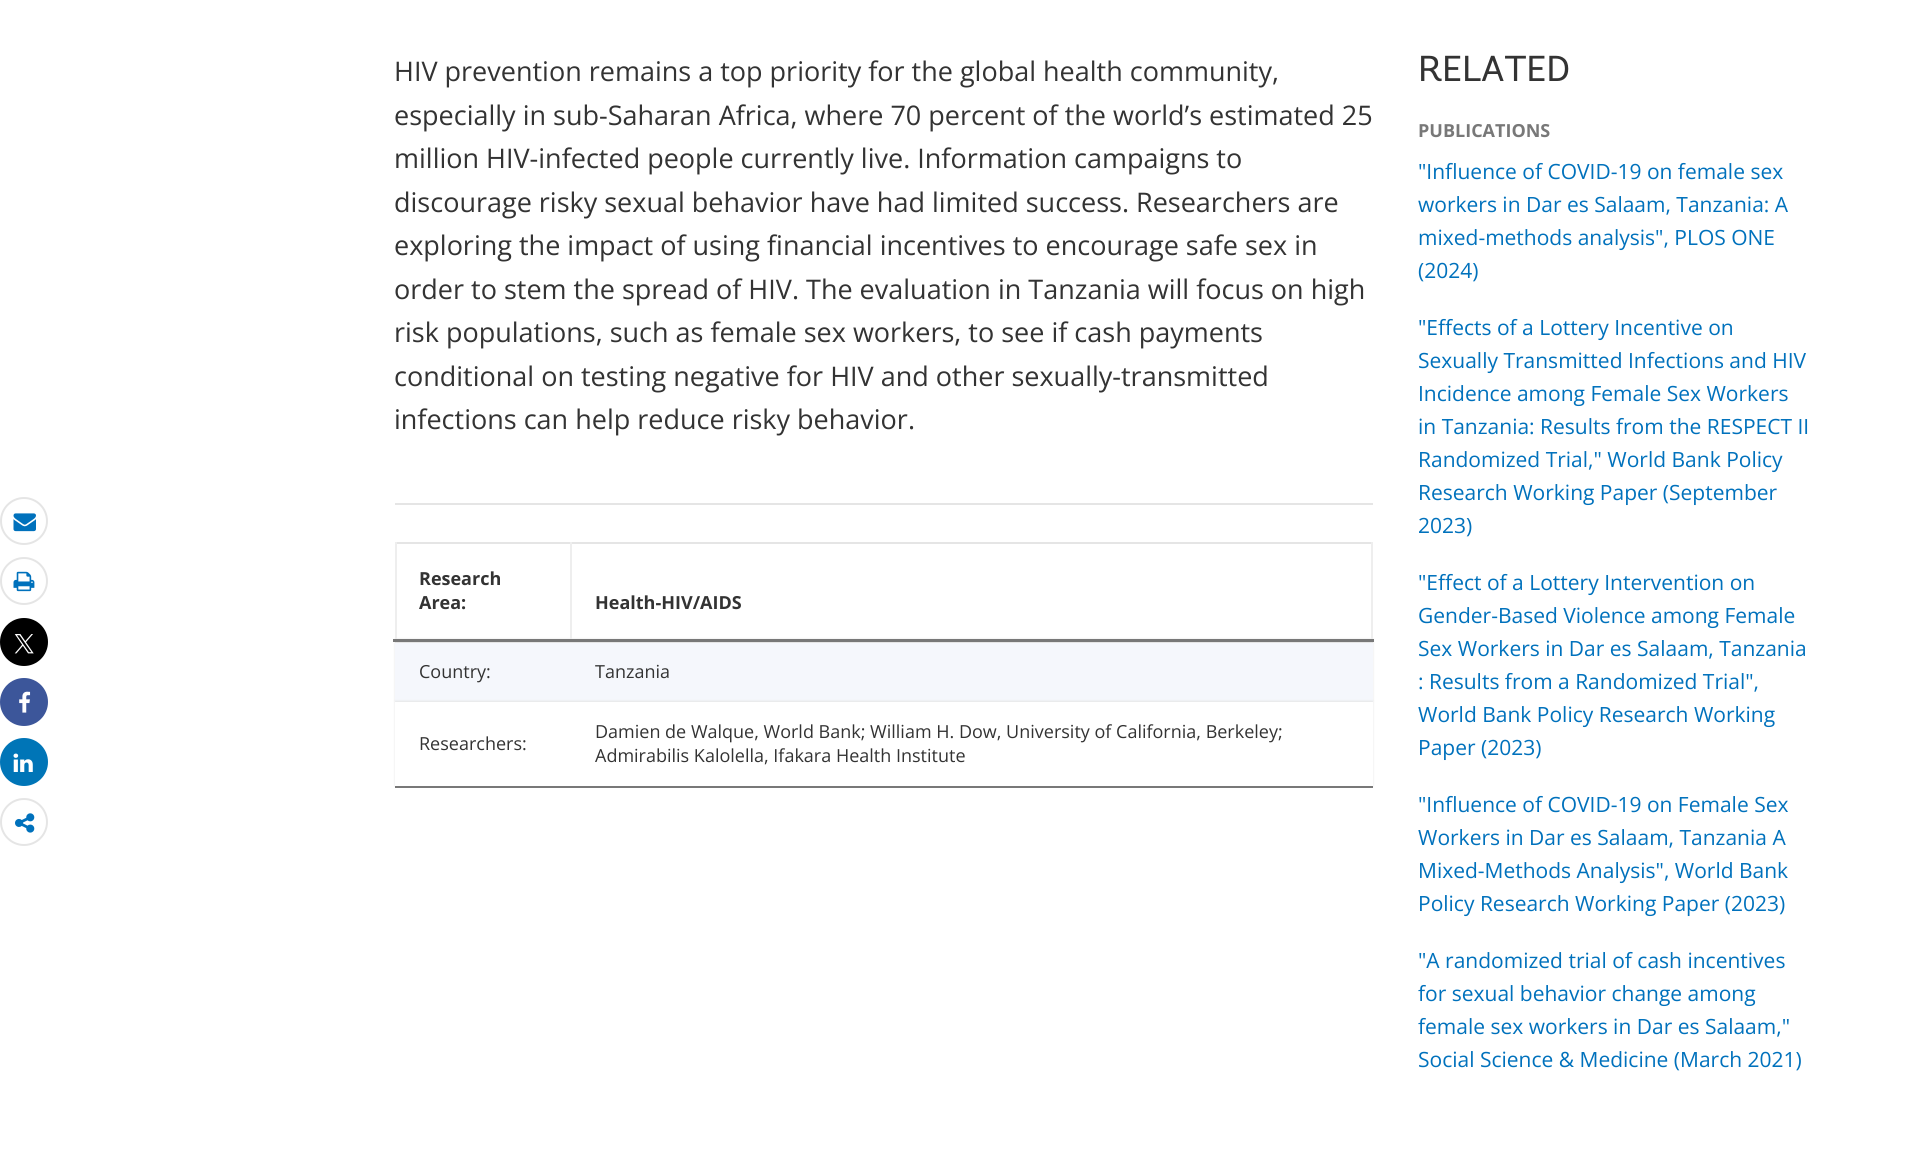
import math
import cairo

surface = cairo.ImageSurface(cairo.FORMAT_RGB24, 1912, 1172)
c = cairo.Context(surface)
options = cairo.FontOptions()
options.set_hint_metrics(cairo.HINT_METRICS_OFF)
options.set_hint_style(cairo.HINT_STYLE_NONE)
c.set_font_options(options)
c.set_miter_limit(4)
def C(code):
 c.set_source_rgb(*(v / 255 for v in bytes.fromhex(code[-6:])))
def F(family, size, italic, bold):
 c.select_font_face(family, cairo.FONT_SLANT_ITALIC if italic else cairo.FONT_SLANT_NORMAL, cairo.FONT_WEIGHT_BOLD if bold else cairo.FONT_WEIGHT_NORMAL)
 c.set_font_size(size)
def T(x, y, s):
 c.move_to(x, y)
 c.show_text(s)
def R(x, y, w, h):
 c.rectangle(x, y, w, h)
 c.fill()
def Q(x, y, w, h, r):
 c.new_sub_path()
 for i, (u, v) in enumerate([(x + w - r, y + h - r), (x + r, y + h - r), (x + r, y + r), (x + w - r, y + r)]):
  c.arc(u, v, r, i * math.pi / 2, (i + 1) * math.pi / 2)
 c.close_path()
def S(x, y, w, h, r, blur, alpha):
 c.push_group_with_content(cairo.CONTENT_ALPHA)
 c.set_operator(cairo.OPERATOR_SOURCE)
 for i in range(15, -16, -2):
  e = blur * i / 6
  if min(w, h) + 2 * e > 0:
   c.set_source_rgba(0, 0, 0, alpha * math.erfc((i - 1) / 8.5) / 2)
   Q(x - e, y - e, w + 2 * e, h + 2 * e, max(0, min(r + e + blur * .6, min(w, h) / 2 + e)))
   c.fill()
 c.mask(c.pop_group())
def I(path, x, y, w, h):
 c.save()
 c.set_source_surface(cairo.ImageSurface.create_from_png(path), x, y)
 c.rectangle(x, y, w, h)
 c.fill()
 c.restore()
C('ffffff')
c.paint()
F('Open Sans',27,0,0)
C('333333')
T(394,81,'HIV prevention remains a top priority for the global health community,')
T(394,125,'especially in sub-Saharan Africa, where 70 percent of the world’s estimated 25')
T(394,168,'million HIV-infected people currently live. Information campaigns to')
T(394,212,'discourage risky sexual behavior have had limited success. Researchers are')
T(394,255,'exploring the impact of using financial incentives to encourage safe sex in')
T(394,299,'order to stem the spread of HIV. The evaluation in Tanzania will focus on high')
T(394,342,'risk populations, such as female sex workers, to see if cash payments')
T(394,386,'conditional on testing negative for HIV and other sexually-transmitted')
T(394,429,'infections can help reduce risky behavior.')
c.new_path()
c.arc(24,521,23,0,2 * math.pi)
C('e5e5e5')
c.stroke()
I('1.png',13,513,23,19)
c.arc(24,581,23,0,2 * math.pi)
c.stroke()
I('2.png',13,571,22,21)
C('000000')
c.arc(24,642,24,0,2 * math.pi)
c.fill()
I('3.png',14,634,20,20)
C('3c569a')
c.arc(24,702,24,0,2 * math.pi)
c.fill()
I('4.png',19,691,12,22)
C('0075b7')
c.arc(24,762,24,0,2 * math.pi)
c.fill()
I('5.png',13,753,20,19)
c.arc(24,822,23,0,2 * math.pi)
C('e5e5e5')
c.stroke()
I('6.png',15,813,20,20)
R(395,503,978,2)
R(395,542,978,2)
C('e5e5e5')
S(395,639,978,62,0,1,1)
C('eeeeee')
R(570,542,2,100)
C('e5e5e5')
R(395,642,1,1)
C('eeeeee')
R(395,542,2,100)
F('Open Sans',18,0,1)
C('333333')
T(419,585,'Research')
T(419,609,'Area:')
C('eeeeee')
R(1371,542,2,100)
C('e5e5e5')
R(1372,642,1,1)
C('333333')
T(595,609,'Health-HIV/AIDS')
C('f5f7fc')
R(395,643,978,59)
C('787878')
R(393,639,981,3)
F('Open Sans',18,0,0)
C('333333')
T(419,678,'Country:')
T(595,678,'Tanzania')
C('e5e5e5')
S(395,701,978,85,0,1,1)
C('ffffff')
R(395,702,978,84)
C('787878')
R(395,786,978,2)
C('333333')
T(419,750,'Researchers:')
T(595,738,'Damien de Walque, World Bank; William H. Dow, University of California, Berkeley;')
T(595,762,'Admirabilis Kalolella, Ifakara Health Institute')
F('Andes',36,0,0)
T(1418,81,'RELATED')
F('Open Sans',18,0,1)
C('787878')
T(1418,137,'PUBLICATIONS')
F('Open Sans',21,0,0)
C('0071bc')
T(1418,179,'"Influence of COVID-19 on female sex')
T(1418,212,'workers in Dar es Salaam, Tanzania: A')
T(1418,245,'mixed-methods analysis", PLOS ONE')
T(1418,278,'(2024)')
T(1418,335,'"Effects of a Lottery Incentive on')
T(1418,368,'Sexually Transmitted Infections and HIV')
T(1418,401,'Incidence among Female Sex Workers')
T(1418,434,'in Tanzania: Results from the RESPECT II')
T(1418,467,'Randomized Trial," World Bank Policy')
T(1418,500,'Research Working Paper (September')
T(1418,533,'2023)')
T(1418,590,'"Effect of a Lottery Intervention on')
T(1418,623,'Gender-Based Violence among Female')
T(1418,656,'Sex Workers in Dar es Salaam, Tanzania')
T(1418,689,': Results from a Randomized Trial",')
T(1418,722,'World Bank Policy Research Working')
T(1418,755,'Paper (2023)')
T(1418,812,'"Influence of COVID-19 on Female Sex')
T(1418,845,'Workers in Dar es Salaam, Tanzania A')
T(1418,878,'Mixed-Methods Analysis", World Bank')
T(1418,911,'Policy Research Working Paper (2023)')
T(1418,968,'"A randomized trial of cash incentives')
T(1418,1001,'for sexual behavior change among')
T(1418,1034,'female sex workers in Dar es Salaam,"')
T(1418,1067,'Social Science & Medicine (March 2021)')
surface.write_to_png('o.png')
